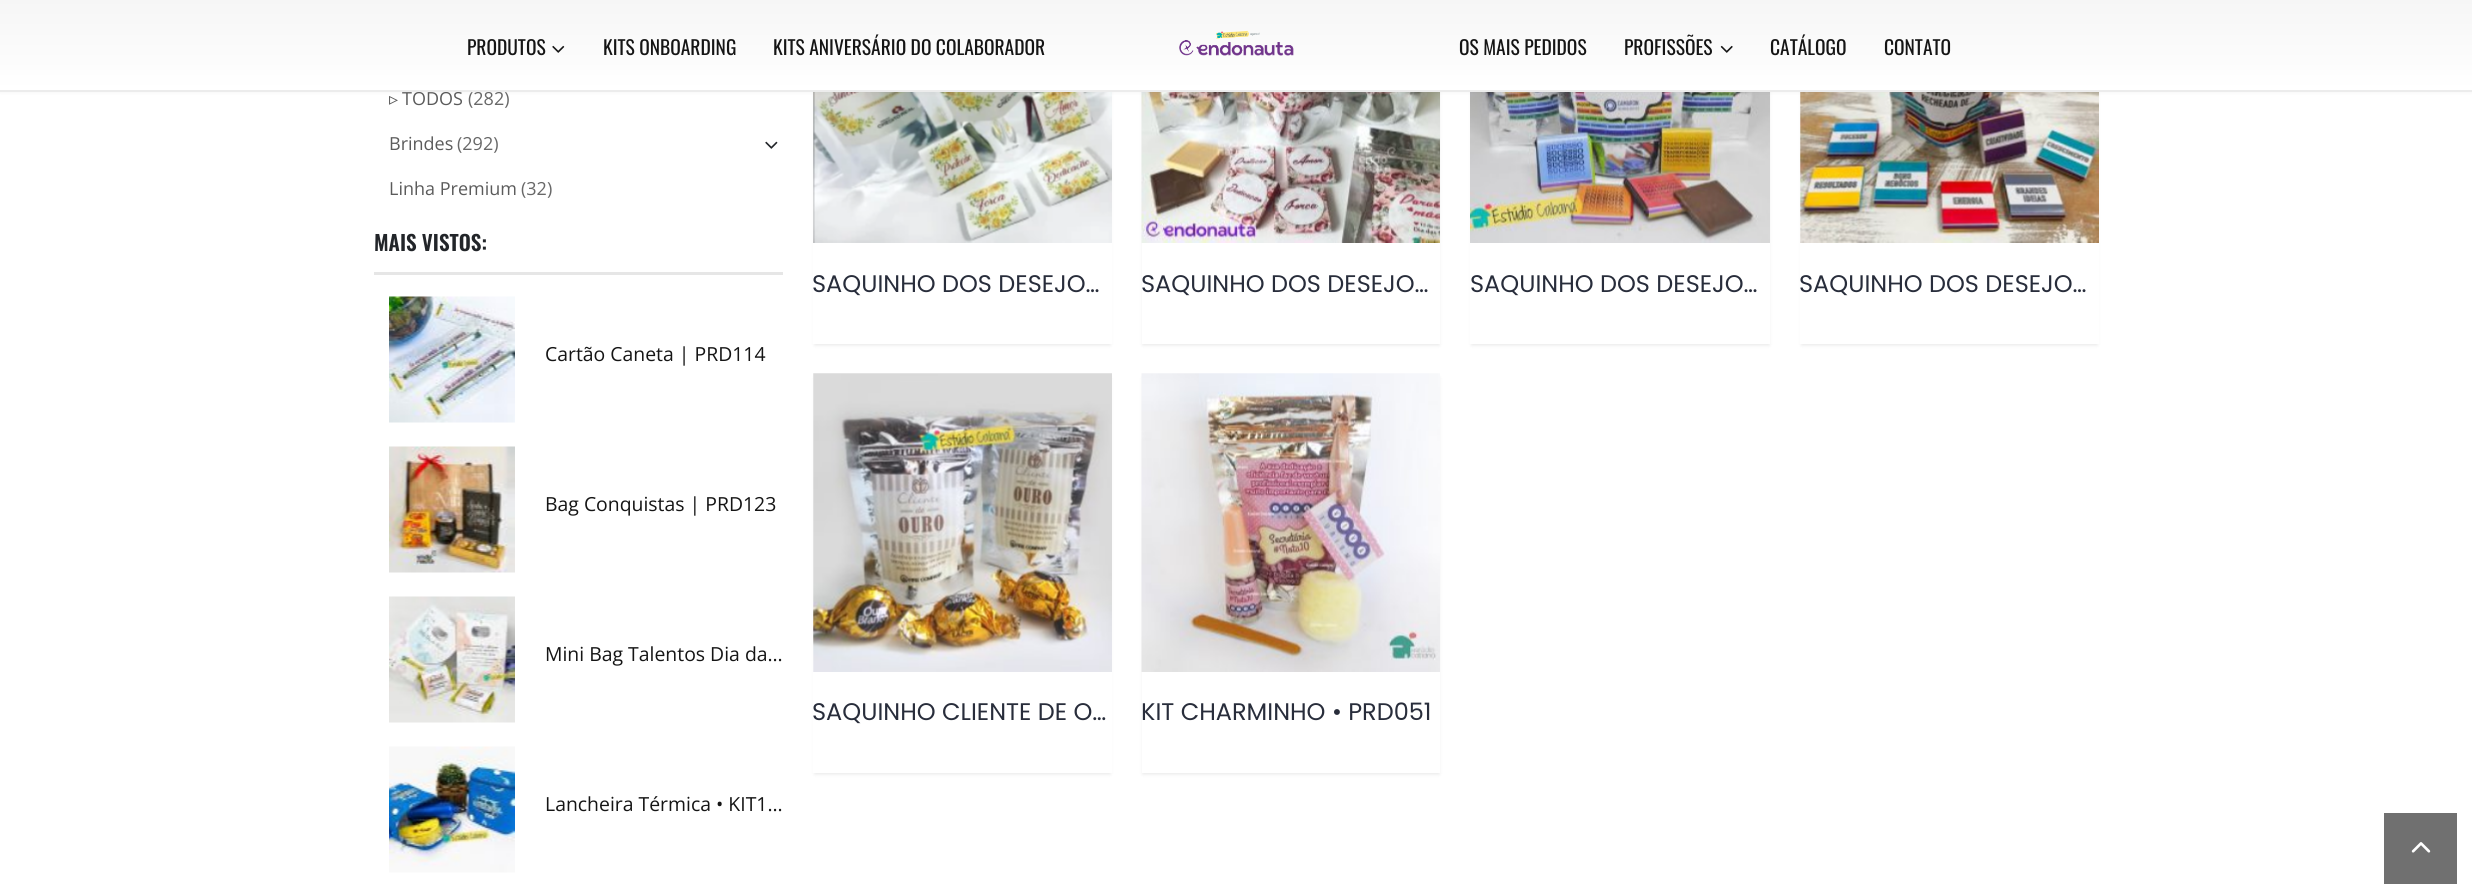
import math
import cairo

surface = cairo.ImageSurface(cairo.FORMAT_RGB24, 2472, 884)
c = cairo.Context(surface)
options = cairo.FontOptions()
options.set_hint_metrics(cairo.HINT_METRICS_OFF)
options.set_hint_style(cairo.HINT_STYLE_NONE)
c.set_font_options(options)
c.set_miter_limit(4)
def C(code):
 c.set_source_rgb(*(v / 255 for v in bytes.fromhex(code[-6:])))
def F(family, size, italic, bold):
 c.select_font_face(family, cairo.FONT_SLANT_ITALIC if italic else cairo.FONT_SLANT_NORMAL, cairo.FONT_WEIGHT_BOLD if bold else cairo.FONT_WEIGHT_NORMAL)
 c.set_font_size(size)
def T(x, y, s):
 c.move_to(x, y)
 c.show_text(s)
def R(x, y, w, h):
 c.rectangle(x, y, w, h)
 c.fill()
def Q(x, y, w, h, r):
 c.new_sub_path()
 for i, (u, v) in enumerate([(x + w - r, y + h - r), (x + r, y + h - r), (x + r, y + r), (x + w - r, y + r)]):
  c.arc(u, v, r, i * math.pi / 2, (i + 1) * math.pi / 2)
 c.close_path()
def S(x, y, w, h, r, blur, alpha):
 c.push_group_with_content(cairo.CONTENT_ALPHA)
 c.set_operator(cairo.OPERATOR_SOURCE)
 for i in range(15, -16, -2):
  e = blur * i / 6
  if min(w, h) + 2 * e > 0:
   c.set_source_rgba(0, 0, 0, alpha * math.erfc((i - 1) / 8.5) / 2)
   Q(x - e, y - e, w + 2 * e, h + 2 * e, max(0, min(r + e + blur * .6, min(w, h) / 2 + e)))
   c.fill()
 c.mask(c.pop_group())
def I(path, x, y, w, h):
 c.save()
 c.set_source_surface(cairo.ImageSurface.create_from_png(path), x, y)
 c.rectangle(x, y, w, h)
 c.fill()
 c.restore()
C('ffffff')
c.paint()
c.save()
c.set_fill_rule(cairo.FILL_RULE_EVEN_ODD)
c.new_path()
c.move_to(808,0)
c.line_to(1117,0)
c.line_to(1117,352)
c.line_to(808,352)
c.close_path()
c.move_to(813,-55)
c.line_to(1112,-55)
c.line_to(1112,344)
c.line_to(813,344)
c.close_path()
c.clip()
C('000000')
S(815,-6,295,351,0,2,.1)
c.restore()
I('9.png',813,92,299,151)
c.save()
c.set_fill_rule(cairo.FILL_RULE_EVEN_ODD)
c.new_path()
c.move_to(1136,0)
c.line_to(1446,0)
c.line_to(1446,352)
c.line_to(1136,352)
c.close_path()
c.move_to(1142,-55)
c.line_to(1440,-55)
c.line_to(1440,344)
c.line_to(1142,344)
c.close_path()
c.clip()
C('000000')
S(1143,-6,296,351,0,2,.1)
c.restore()
I('10.png',1141,92,299,151)
c.save()
c.set_fill_rule(cairo.FILL_RULE_EVEN_ODD)
c.new_path()
c.move_to(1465,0)
c.line_to(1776,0)
c.line_to(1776,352)
c.line_to(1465,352)
c.close_path()
c.move_to(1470,-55)
c.line_to(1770,-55)
c.line_to(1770,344)
c.line_to(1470,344)
c.close_path()
c.clip()
C('000000')
S(1472,-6,297,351,0,2,.1)
c.restore()
I('11.png',1470,92,300,151)
c.save()
c.set_fill_rule(cairo.FILL_RULE_EVEN_ODD)
c.new_path()
c.move_to(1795,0)
c.line_to(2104,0)
c.line_to(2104,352)
c.line_to(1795,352)
c.close_path()
c.move_to(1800,-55)
c.line_to(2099,-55)
c.line_to(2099,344)
c.line_to(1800,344)
c.close_path()
c.clip()
C('000000')
S(1802,-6,295,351,0,2,.1)
c.restore()
I('12.png',1800,92,299,151)
C('000000')
S(0,0,2472,92,0,2,.06)
gradient = cairo.LinearGradient(1236,0,1236,90)
gradient.add_color_stop_rgba(0,0.965,0.965,0.965,1)
gradient.add_color_stop_rgba(1,1,1,1,1)
c.set_source(gradient)
R(0,0,2472,90)
F('Open Sans',18,0,0)
C('5b5b5b')
T(402,105,'TODOS')
C('686868')
T(468,105,'(282)')
C('ececec')
R(0,90,2472,2)
F('Oswald',19.5,0,0)
C('151515')
T(467,55,'PRODUTOS')
I('1.png',552,45,13,8)
T(603,55,'KITS ONBOARDING')
T(773,55,'KITS ANIVERSÁRIO DO COLABORADOR')
I('2.png',1179,30,115,26)
T(1459,55,'OS MAIS PEDIDOS')
T(1624,55,'PROFISSÕES')
I('3.png',1720,45,13,8)
T(1770,55,'CATÁLOGO')
T(1884,55,'CONTATO')
F('DejaVu Sans',18,0,0)
C('5b5b5b')
T(389,105,'▹')
F('Open Sans',18,0,0)
T(389,150,'Brindes')
C('686868')
T(457,150,'(292)')
I('4.png',765,141,13,8)
C('5b5b5b')
T(389,195,'Linha Premium')
C('686868')
T(521,195,'(32)')
C('e6e6e6')
R(374,272,409,3)
F('Oswald SemiBold',21,0,0)
C('222529')
T(374,251,'MAIS VISTOS:')
I('5.png',389,296,126,127)
F('Open Sans',19.4,0,0)
C('151515')
T(545,361,'Cartão Caneta | PRD114')
I('6.png',389,446,126,127)
T(545,511,'Bag Conquistas | PRD123')
I('7.png',389,596,126,127)
T(545,661,'Mini Bag Talentos Dia da…')
I('8.png',389,746,126,127)
T(545,811,'Lancheira Térmica • KIT1…')
F('Poppins',24,0,0)
C('282d3b')
T(812,292,'SAQUINHO DOS DESEJO…')
T(1141,292,'SAQUINHO DOS DESEJO…')
T(1470,292,'SAQUINHO DOS DESEJO…')
T(1799,292,'SAQUINHO DOS DESEJO…')
c.save()
c.set_fill_rule(cairo.FILL_RULE_EVEN_ODD)
c.new_path()
c.move_to(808,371)
c.line_to(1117,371)
c.line_to(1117,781)
c.line_to(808,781)
c.close_path()
c.move_to(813,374)
c.line_to(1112,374)
c.line_to(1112,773)
c.line_to(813,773)
c.close_path()
c.clip()
C('000000')
S(815,378,295,396,0,2,.1)
c.restore()
I('13.png',813,373,299,299)
T(812,720,'SAQUINHO CLIENTE DE O…')
c.save()
c.set_fill_rule(cairo.FILL_RULE_EVEN_ODD)
c.new_path()
c.move_to(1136,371)
c.line_to(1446,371)
c.line_to(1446,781)
c.line_to(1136,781)
c.close_path()
c.move_to(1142,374)
c.line_to(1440,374)
c.line_to(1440,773)
c.line_to(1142,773)
c.close_path()
c.clip()
C('000000')
S(1143,378,296,396,0,2,.1)
c.restore()
I('14.png',1141,373,299,299)
T(1141,720,'KIT CHARMINHO • PRD051')
C('707070')
R(2384,813,73,71)
I('15.png',2411,842,20,11)
surface.write_to_png('o.png')
